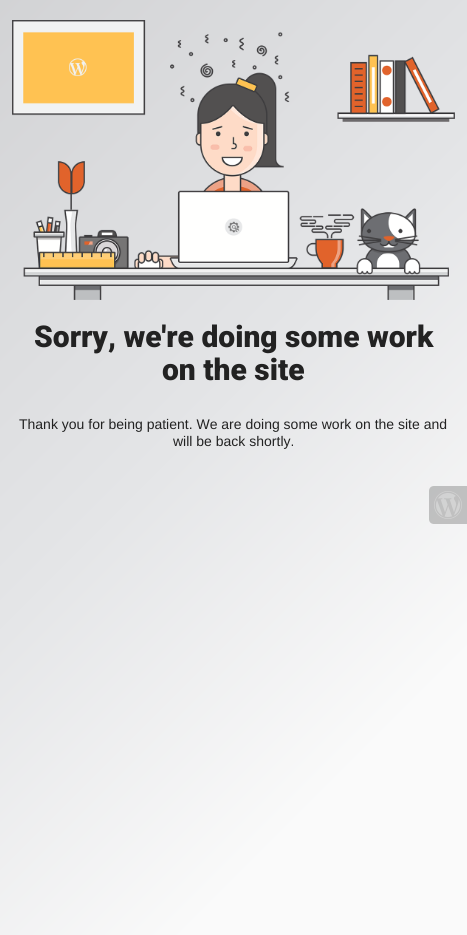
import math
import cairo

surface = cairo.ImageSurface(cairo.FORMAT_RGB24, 467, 935)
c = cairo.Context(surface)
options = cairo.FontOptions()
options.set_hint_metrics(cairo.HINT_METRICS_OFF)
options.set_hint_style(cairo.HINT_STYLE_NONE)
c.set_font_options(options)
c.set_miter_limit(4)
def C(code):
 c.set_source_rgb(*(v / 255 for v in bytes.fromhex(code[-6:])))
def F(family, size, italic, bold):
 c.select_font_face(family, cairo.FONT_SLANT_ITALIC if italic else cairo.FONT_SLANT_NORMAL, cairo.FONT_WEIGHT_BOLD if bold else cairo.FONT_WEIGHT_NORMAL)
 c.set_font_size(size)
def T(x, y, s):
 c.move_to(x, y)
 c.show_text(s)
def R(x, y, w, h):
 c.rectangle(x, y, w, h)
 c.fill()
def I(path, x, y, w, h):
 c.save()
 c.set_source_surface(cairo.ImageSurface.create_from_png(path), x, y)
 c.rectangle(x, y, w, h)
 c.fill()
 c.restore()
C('ffffff')
c.paint()
gradient = cairo.LinearGradient(-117,117,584,818)
gradient.add_color_stop_rgba(0,0.824,0.827,0.835,1)
gradient.add_color_stop_rgba(.44,0.894,0.898,0.906,1)
gradient.add_color_stop_rgba(.8,0.98,0.98,0.98,1)
c.set_source(gradient)
R(0,0,467,935)
I('1.png',12,20,443,280)
F('Roboto Black',30,0,0)
C('222222')
T(34,347,'Sorry, we\'re doing some work')
T(162,380,'on the site')
F('Liberation Sans',14,0,0)
T(19,429,'Thank you for being patient. We are doing some work on the site and')
T(173,446,'will be back shortly.')
c.set_source_rgba(0.275,0.275,0.275,0.3)
c.new_path()
c.move_to(434,486)
c.line_to(467,486)
c.line_to(467,524)
c.line_to(434,524)
c.curve_to(431,524,429,522,429,519)
c.line_to(429,491)
c.curve_to(429,488,431,486,434,486)
c.close_path()
c.fill()
I('2.png',434,491,28,28)
surface.write_to_png('o.png')
